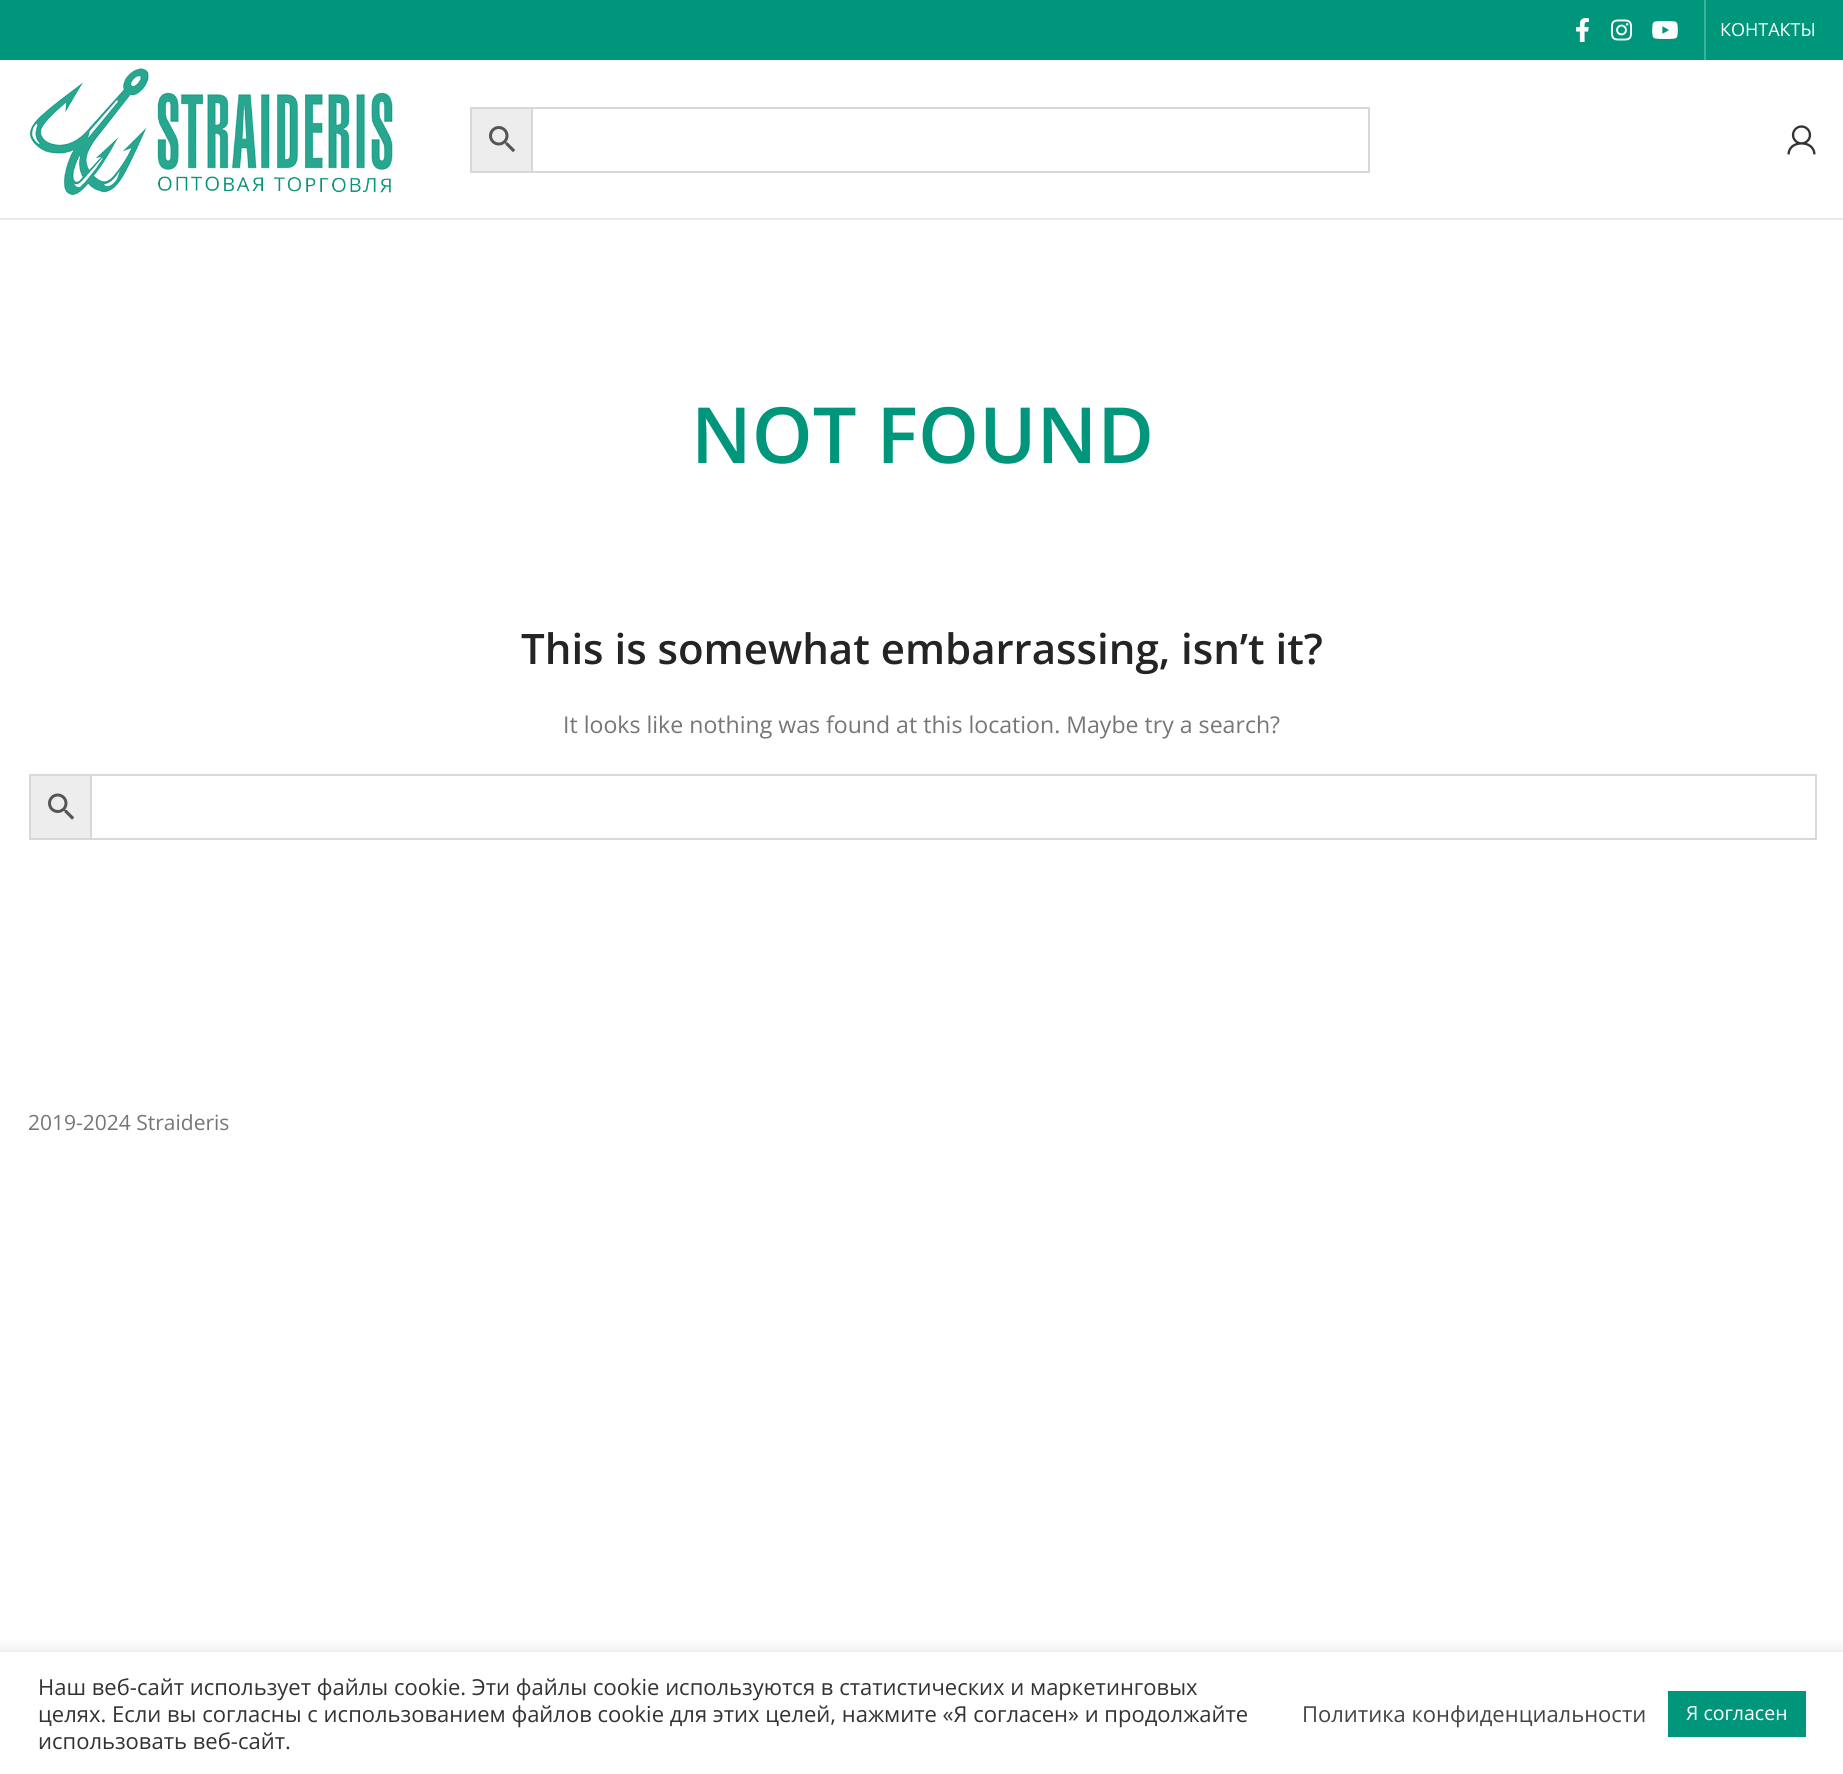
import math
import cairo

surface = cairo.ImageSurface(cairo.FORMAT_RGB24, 1843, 1774)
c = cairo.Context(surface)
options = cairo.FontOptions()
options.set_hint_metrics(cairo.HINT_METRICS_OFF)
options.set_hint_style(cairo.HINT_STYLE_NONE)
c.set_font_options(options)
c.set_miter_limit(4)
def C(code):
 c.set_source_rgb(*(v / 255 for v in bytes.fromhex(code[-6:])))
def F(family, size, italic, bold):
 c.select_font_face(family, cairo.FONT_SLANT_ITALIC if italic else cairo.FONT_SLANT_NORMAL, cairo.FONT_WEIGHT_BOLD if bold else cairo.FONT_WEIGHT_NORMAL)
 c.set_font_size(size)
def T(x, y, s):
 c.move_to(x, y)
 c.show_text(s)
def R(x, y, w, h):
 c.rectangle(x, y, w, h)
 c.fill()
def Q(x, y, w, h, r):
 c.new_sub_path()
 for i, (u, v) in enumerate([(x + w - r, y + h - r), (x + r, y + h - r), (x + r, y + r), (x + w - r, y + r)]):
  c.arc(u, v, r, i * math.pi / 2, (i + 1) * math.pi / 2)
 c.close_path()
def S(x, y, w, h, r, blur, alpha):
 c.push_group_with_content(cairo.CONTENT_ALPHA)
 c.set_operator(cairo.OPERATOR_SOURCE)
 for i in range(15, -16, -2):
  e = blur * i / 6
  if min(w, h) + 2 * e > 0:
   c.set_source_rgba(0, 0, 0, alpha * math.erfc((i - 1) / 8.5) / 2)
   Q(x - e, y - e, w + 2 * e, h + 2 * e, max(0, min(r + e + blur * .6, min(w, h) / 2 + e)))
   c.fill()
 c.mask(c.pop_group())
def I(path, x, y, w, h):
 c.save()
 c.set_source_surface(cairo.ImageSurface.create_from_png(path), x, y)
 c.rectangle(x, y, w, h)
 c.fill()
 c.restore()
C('ffffff')
c.paint()
C('00967b')
R(0,0,1843,60)
I('1.png',1576,18,13,24)
I('2.png',1611,19,21,22)
I('3.png',1652,21,26,18)
C('40b09c')
R(1704,0,2,60)
F('Open Sans',18,0,0)
C('ffffff')
T(1720,36,'КОНТАКТЫ')
C('e8e8e8')
R(0,218,1843,2)
I('4.png',29,68,364,128)
C('ededed')
c.rectangle(471,108,61,64)
c.fill_preserve()
C('d8d8d8')
c.stroke()
I('5.png',489,126,27,27)
c.rectangle(532,108,837,64)
c.stroke()
I('6.png',1787,125,29,30)
F('Open Sans SemiBold',77.5,0,0)
C('00967b')
T(691,463,'NOT FOUND')
F('Open Sans SemiBold',42,0,0)
C('242424')
T(521,664,'This is somewhat embarrassing, isn’t it?')
F('Open Sans',23.1,0,0)
C('767676')
T(563,733,'It looks like nothing was found at this location. Maybe try a search?')
C('ededed')
c.rectangle(30,775,61,64)
c.fill_preserve()
C('d8d8d8')
c.stroke()
I('7.png',48,793,27,27)
c.rectangle(91,775,1725,64)
c.stroke()
F('Open Sans',21,0,0)
C('767676')
T(28,1130,'2019-2024 Straideris')
c.save()
c.rectangle(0,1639,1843,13)
c.clip()
C('acabab')
S(0,1650,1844,123,0,7.5,.3)
c.restore()
F('Open Sans',22,0,0)
C('333333')
T(38,1695,'Наш веб-сайт использует файлы cookie. Эти файлы cookie используются в статистических и маркетинговых')
T(38,1722,'целях. Если вы согласны с использованием файлов cookie для этих целей, нажмите «Я согласен» и продолжайте')
T(38,1749,'использовать веб-сайт.')
C('444444')
T(1302,1722,'Политика конфиденциальности')
C('00967b')
R(1668,1691,138,46)
F('Open Sans',19.5,0,0)
C('ffffff')
T(1686,1720,'Я согласен')
surface.write_to_png('o.png')
